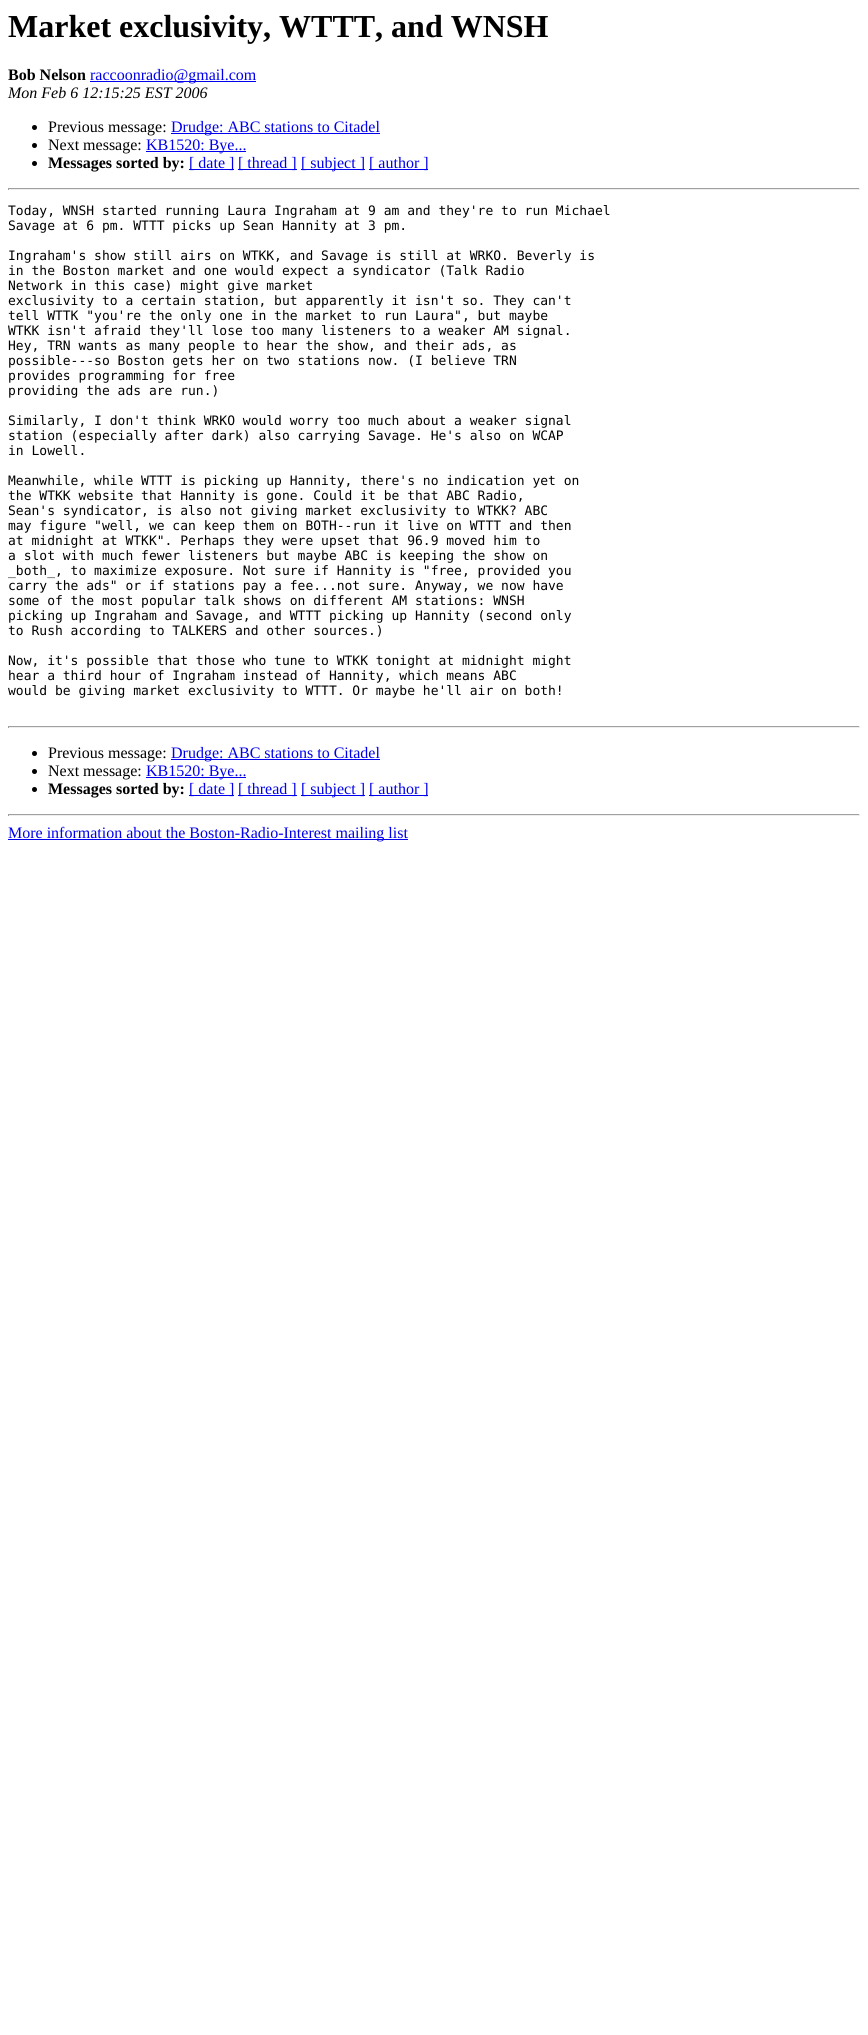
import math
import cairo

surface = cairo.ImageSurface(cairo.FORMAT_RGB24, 868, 2035)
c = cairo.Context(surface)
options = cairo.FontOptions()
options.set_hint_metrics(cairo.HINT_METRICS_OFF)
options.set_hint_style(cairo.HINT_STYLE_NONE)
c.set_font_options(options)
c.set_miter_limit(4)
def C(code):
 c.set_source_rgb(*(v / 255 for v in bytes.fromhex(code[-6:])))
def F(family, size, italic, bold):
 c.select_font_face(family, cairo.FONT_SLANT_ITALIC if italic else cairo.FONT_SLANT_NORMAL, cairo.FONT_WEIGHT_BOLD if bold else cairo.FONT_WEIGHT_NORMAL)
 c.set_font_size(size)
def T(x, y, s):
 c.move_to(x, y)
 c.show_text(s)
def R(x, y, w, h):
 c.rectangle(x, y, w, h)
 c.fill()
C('ffffff')
c.paint()
F('Liberation Serif',32,0,1)
C('000000')
T(8,37,'Market exclusivity, WTTT, and WNSH')
F('Liberation Serif',16,0,1)
T(8,80,'Bob Nelson')
C('0000ee')
R(90,81,166,1)
F('Liberation Serif',16,0,0)
T(90,80,'raccoonradio@gmail.com')
F('Liberation Serif',16,1,0)
C('000000')
T(8,98,'Mon Feb 6 12:15:25 EST 2006')
c.new_path()
c.arc(34.5,127.5,2.5,0,2 * math.pi)
c.fill()
F('Liberation Serif',16,0,0)
T(48,132,'Previous message:')
C('0000ee')
R(171,133,209,1)
T(171,132,'Drudge: ABC stations to Citadel')
C('000000')
c.new_path()
c.arc(34.5,145.5,2.5,0,2 * math.pi)
c.fill()
T(48,150,'Next message:')
C('0000ee')
R(146,151,100,1)
T(146,150,'KB1520: Bye...')
C('000000')
c.new_path()
c.arc(34.5,163.5,2.5,0,2 * math.pi)
c.fill()
F('Liberation Serif',16,0,1)
T(48,168,'Messages sorted by:')
C('0000ee')
R(189,169,45,1)
F('Liberation Serif',16,0,0)
T(189,168,'[ date ]')
R(238,169,59,1)
T(238,168,'[ thread ]')
R(301,169,64,1)
T(301,168,'[ subject ]')
R(369,169,59,1)
T(369,168,'[ author ]')
C('9f9f9f')
R(8,188,852,1)
C('eeeeee')
R(859,188,1,2)
R(8,189,852,1)
C('9f9f9f')
R(8,188,1,2)
F('DejaVu Sans Mono',13,0,0)
C('000000')
T(8,215,'Today, WNSH started running Laura Ingraham at 9 am and they\'re to run Michael')
T(8,230,'Savage at 6 pm. WTTT picks up Sean Hannity at 3 pm.')
T(8,260,'Ingraham\'s show still airs on WTKK, and Savage is still at WRKO. Beverly is')
T(8,275,'in the Boston market and one would expect a syndicator (Talk Radio')
T(8,290,'Network in this case) might give market')
T(8,305,'exclusivity to a certain station, but apparently it isn\'t so. They can\'t')
T(8,320,'tell WTTK "you\'re the only one in the market to run Laura", but maybe')
T(8,335,'WTKK isn\'t afraid they\'ll lose too many listeners to a weaker AM signal.')
T(8,350,'Hey, TRN wants as many people to hear the show, and their ads, as')
T(8,365,'possible---so Boston gets her on two stations now. (I believe TRN')
T(8,380,'provides programming for free')
T(8,395,'providing the ads are run.)')
T(8,425,'Similarly, I don\'t think WRKO would worry too much about a weaker signal')
T(8,440,'station (especially after dark) also carrying Savage. He\'s also on WCAP')
T(8,455,'in Lowell.')
T(8,485,'Meanwhile, while WTTT is picking up Hannity, there\'s no indication yet on')
T(8,500,'the WTKK website that Hannity is gone. Could it be that ABC Radio,')
T(8,515,'Sean\'s syndicator, is also not giving market exclusivity to WTKK? ABC')
T(8,530,'may figure "well, we can keep them on BOTH--run it live on WTTT and then')
T(8,545,'at midnight at WTKK". Perhaps they were upset that 96.9 moved him to')
T(8,560,'a slot with much fewer listeners but maybe ABC is keeping the show on')
T(8,575,'_both_, to maximize exposure. Not sure if Hannity is "free, provided you')
T(8,590,'carry the ads" or if stations pay a fee...not sure. Anyway, we now have')
T(8,605,'some of the most popular talk shows on different AM stations: WNSH')
T(8,620,'picking up Ingraham and Savage, and WTTT picking up Hannity (second only')
T(8,635,'to Rush according to TALKERS and other sources.)')
T(8,665,'Now, it\'s possible that those who tune to WTKK tonight at midnight might')
T(8,680,'hear a third hour of Ingraham instead of Hannity, which means ABC')
T(8,695,'would be giving market exclusivity to WTTT. Or maybe he\'ll air on both!')
C('9f9f9f')
R(8,726,852,1)
C('eeeeee')
R(859,726,1,2)
R(8,727,852,1)
C('9f9f9f')
R(8,726,1,2)
C('000000')
c.new_path()
c.arc(34.5,753.5,2.5,0,2 * math.pi)
c.fill()
F('Liberation Serif',16,0,0)
T(48,758,'Previous message:')
C('0000ee')
R(171,759,209,1)
T(171,758,'Drudge: ABC stations to Citadel')
C('000000')
c.new_path()
c.arc(34.5,771.5,2.5,0,2 * math.pi)
c.fill()
T(48,776,'Next message:')
C('0000ee')
R(146,777,100,1)
T(146,776,'KB1520: Bye...')
C('000000')
c.new_path()
c.arc(34.5,789.5,2.5,0,2 * math.pi)
c.fill()
F('Liberation Serif',16,0,1)
T(48,794,'Messages sorted by:')
C('0000ee')
R(189,795,45,1)
F('Liberation Serif',16,0,0)
T(189,794,'[ date ]')
R(238,795,59,1)
T(238,794,'[ thread ]')
R(301,795,64,1)
T(301,794,'[ subject ]')
R(369,795,59,1)
T(369,794,'[ author ]')
C('9f9f9f')
R(8,814,852,1)
C('eeeeee')
R(859,814,1,2)
R(8,815,852,1)
C('9f9f9f')
R(8,814,1,2)
C('0000ee')
R(8,839,400,1)
T(8,838,'More information about the Boston-Radio-Interest mailing list')
surface.write_to_png('o.png')
